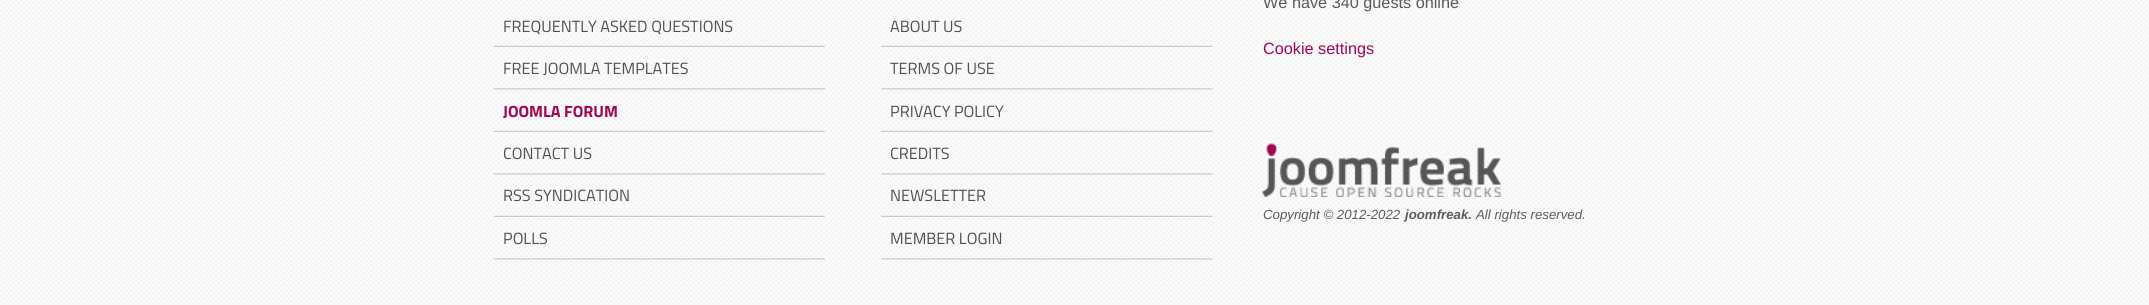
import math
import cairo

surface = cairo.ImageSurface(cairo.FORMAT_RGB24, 2149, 305)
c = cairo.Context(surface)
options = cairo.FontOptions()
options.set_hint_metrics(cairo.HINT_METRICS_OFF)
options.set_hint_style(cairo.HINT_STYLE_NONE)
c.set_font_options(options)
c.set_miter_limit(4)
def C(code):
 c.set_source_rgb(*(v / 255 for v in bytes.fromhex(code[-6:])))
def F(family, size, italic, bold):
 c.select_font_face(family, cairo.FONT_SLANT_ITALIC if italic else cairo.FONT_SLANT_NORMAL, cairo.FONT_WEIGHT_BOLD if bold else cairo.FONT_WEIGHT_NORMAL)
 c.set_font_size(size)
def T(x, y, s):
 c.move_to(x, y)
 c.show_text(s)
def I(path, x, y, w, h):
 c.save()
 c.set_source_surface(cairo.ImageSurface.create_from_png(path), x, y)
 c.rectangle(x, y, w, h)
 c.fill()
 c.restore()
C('ffffff')
c.paint()
I('1.png',0,0,2149,305)
F('Liberation Sans',16.25,0,0)
C('5b5b5b')
T(1263,8,'We have 340 guests online')
I('2.png',493,45,332,2)
F('Titillium Web',16.25,0,0)
C('4f4f4f')
T(503,32,'FREQUENTLY ASKED QUESTIONS')
I('3.png',493,88,332,2)
T(503,74,'FREE JOOMLA TEMPLATES')
I('2.png',493,130,332,2)
F('Titillium Web',16.25,0,1)
C('a10651')
T(503,117,'JOOMLA FORUM')
I('3.png',493,173,332,2)
F('Titillium Web',16.25,0,0)
C('4f4f4f')
T(503,159,'CONTACT US')
I('2.png',493,215,332,2)
T(503,201,'RSS SYNDICATION')
I('3.png',493,258,332,2)
T(503,244,'POLLS')
I('4.png',881,45,332,2)
T(890,32,'ABOUT US')
I('5.png',881,88,332,2)
T(890,74,'TERMS OF USE')
I('4.png',881,130,332,2)
T(890,117,'PRIVACY POLICY')
I('5.png',881,173,332,2)
T(890,159,'CREDITS')
I('4.png',881,215,332,2)
T(890,201,'NEWSLETTER')
I('5.png',881,258,332,2)
T(890,244,'MEMBER LOGIN')
F('Liberation Sans',16.25,0,0)
C('a10651')
T(1263,54,'Cookie settings')
I('6.png',1262,143,240,54)
F('Liberation Sans',13.25,1,0)
C('5b5b5b')
T(1263,219,'Copyright © 2012-2022')
F('Liberation Sans',13.25,1,1)
T(1405,219,'joomfreak.')
F('Liberation Sans',13.25,1,0)
T(1476,219,'All rights reserved.')
surface.write_to_png('o.png')
